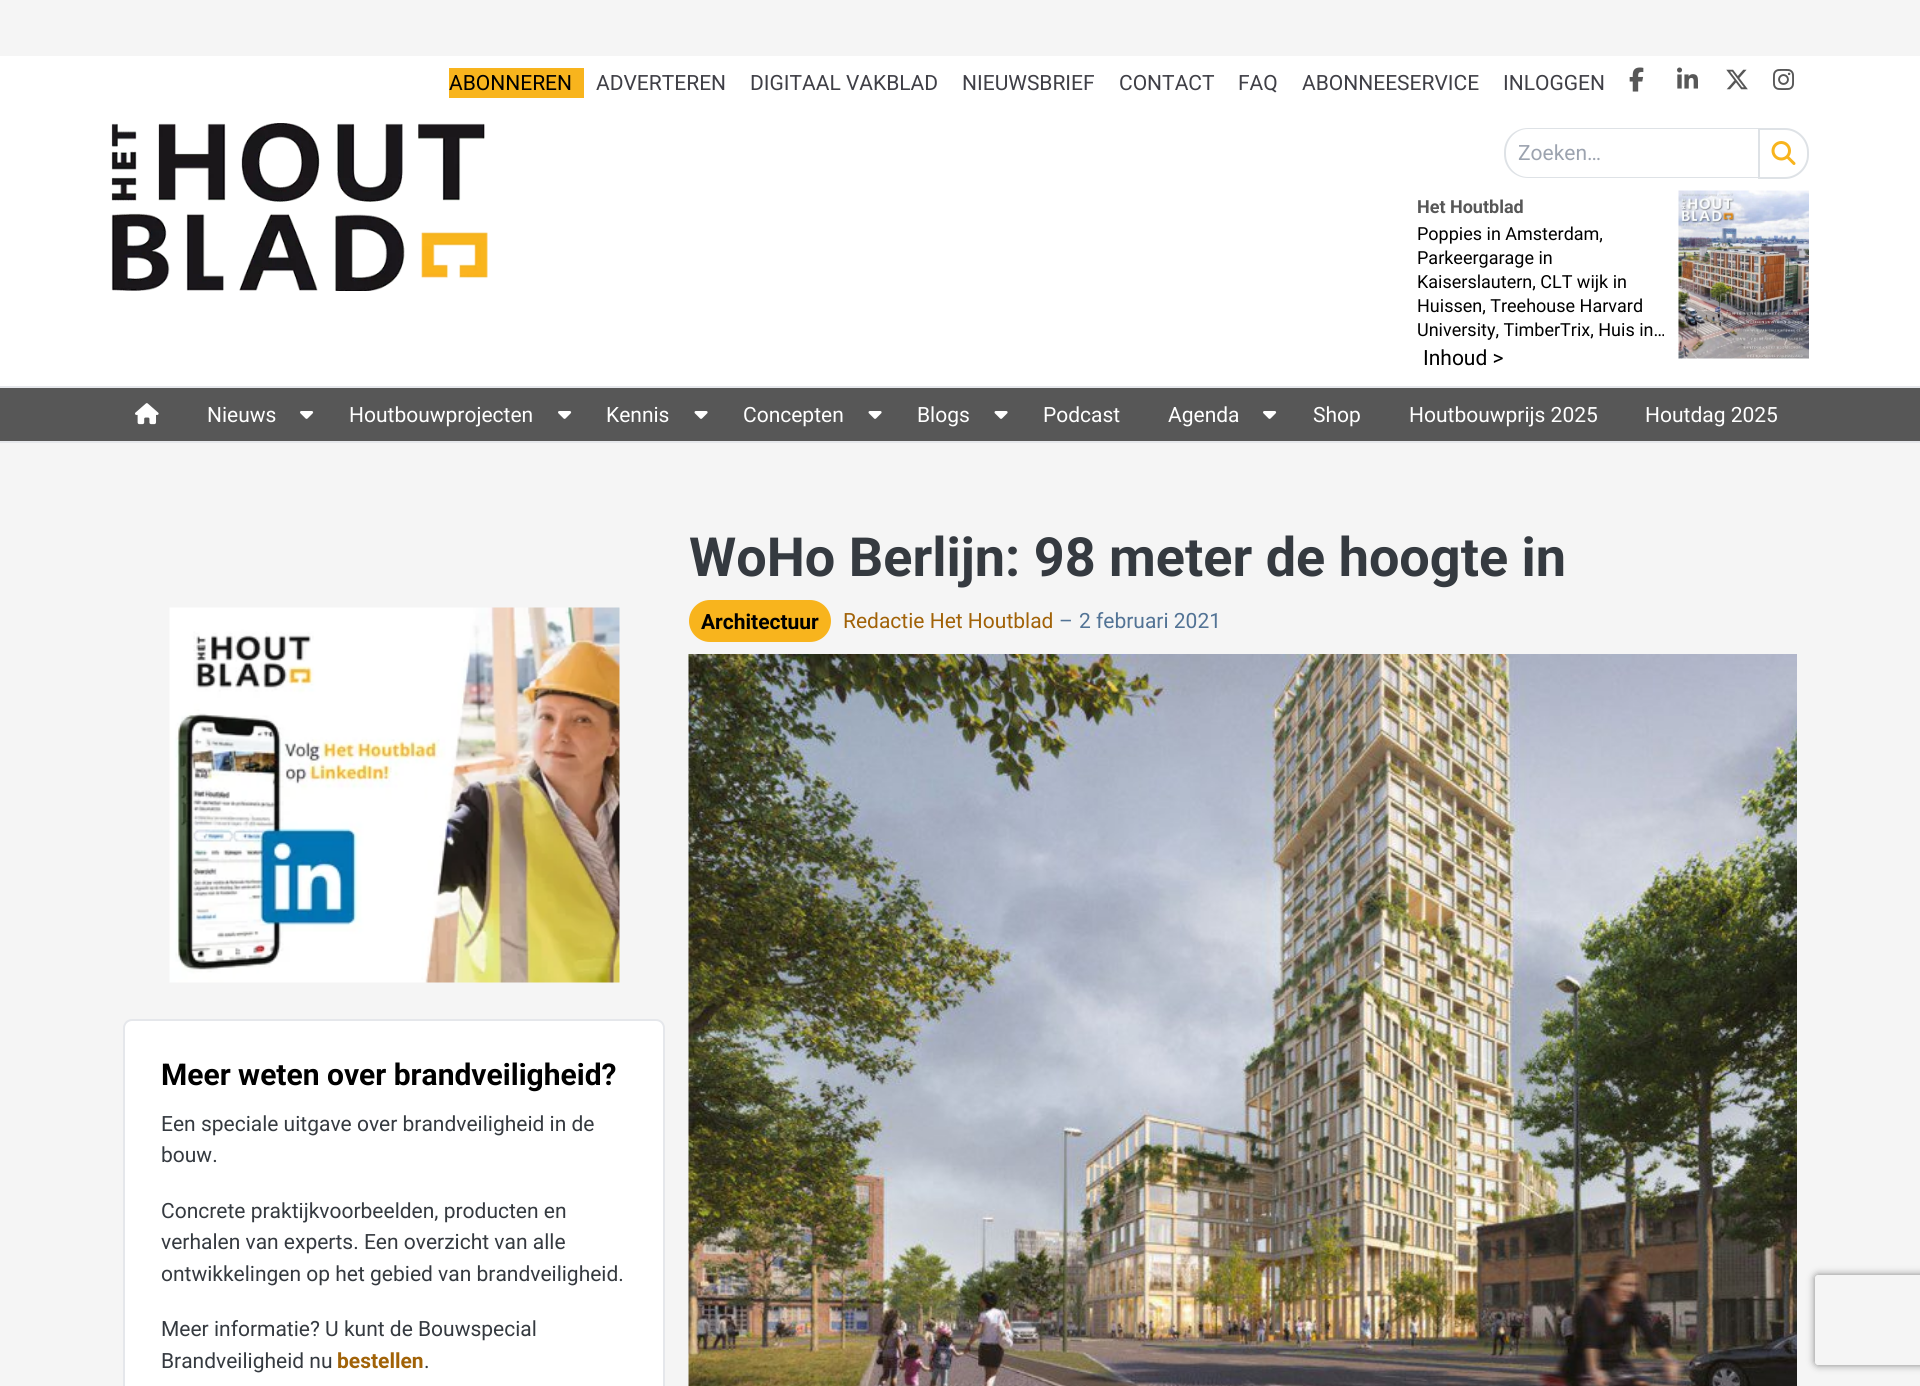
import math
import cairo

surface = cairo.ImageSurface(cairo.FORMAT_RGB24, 1920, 1386)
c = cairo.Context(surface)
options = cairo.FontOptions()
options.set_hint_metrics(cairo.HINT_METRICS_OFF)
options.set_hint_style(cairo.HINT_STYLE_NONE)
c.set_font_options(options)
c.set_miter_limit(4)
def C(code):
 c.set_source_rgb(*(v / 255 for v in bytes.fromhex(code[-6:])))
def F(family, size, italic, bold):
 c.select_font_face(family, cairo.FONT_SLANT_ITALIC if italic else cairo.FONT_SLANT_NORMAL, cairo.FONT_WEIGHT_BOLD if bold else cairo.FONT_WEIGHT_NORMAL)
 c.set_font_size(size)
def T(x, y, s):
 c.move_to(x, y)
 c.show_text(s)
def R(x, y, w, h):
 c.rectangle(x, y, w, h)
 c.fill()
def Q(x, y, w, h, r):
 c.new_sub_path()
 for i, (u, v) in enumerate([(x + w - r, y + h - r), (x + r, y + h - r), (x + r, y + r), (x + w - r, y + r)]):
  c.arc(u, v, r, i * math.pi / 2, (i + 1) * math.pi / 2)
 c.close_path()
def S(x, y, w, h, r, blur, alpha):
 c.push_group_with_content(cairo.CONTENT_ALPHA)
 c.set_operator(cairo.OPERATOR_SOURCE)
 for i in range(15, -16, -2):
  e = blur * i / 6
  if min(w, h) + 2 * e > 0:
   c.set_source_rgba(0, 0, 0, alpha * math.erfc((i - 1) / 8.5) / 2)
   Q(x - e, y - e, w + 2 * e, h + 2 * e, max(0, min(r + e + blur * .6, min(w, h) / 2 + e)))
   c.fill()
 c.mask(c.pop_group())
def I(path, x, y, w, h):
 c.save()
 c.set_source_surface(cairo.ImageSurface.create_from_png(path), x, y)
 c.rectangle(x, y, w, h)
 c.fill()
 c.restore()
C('f5f5f5')
c.paint()
C('ffffff')
R(0,56,1920,330)
C('f8b41d')
R(449,68,135,30)
F('Roboto',21,0,0)
C('000000')
T(449,90,'ABONNEREN')
C('3f3f46')
T(596,90,'ADVERTEREN')
T(750,90,'DIGITAAL VAKBLAD')
T(962,90,'NIEUWSBRIEF')
T(1119,90,'CONTACT')
T(1238,90,'FAQ')
T(1302,90,'ABONNEESERVICE')
T(1503,90,'INLOGGEN')
I('1.png',1629,67,15,25)
I('2.png',1677,67,21,22)
I('3.png',1726,69,22,21)
I('4.png',1773,69,21,21)
I('5.png',111,123,377,168)
C('dee2e6')
c.set_fill_rule(cairo.FILL_RULE_EVEN_ODD)
c.new_path()
c.move_to(1528,128)
c.line_to(1758,128)
c.line_to(1758,178)
c.line_to(1528,178)
c.curve_to(1515,178,1504,168,1504,154)
c.line_to(1504,152)
c.curve_to(1504,138,1515,128,1528,128)
c.close_path()
c.move_to(1528,129)
c.line_to(1758,129)
c.line_to(1758,177)
c.line_to(1528,177)
c.curve_to(1516,177,1506,167,1506,154)
c.line_to(1506,152)
c.curve_to(1506,139,1516,129,1528,129)
c.close_path()
c.fill()
C('9ca3af')
T(1518,160,'Zoeken…')
c.new_path()
c.move_to(1759,129)
c.line_to(1785,129)
c.curve_to(1797.5,129,1808,139.5,1808,152)
c.line_to(1808,155)
c.curve_to(1808,167.5,1797.5,178,1785,178)
c.line_to(1759,178)
c.close_path()
C('dee2e6')
c.stroke()
I('6.png',1771,141,25,24)
F('Roboto',18,0,1)
C('575757')
T(1417,213,'Het Houtblad')
F('Roboto',18,0,0)
C('000000')
T(1417,240,'Poppies in Amsterdam,')
T(1417,264,'Parkeergarage in')
T(1417,288,'Kaiserslautern, CLT wijk in')
T(1417,312,'Huissen, Treehouse Harvard')
T(1417,336,'University, TimberTrix, Huis in…')
F('Roboto',21,0,0)
T(1423,365,'Inhoud >')
I('7.png',1678,190,131,169)
C('575757')
R(0,388,1920,53)
C('e5e7eb')
R(0,386,1920,2)
R(0,441,1920,2)
I('8.png',135,403,24,22)
C('ffffff')
T(207,422,'Nieuws')
I('9.png',300,411,14,8)
T(349,422,'Houtbouwprojecten')
I('9.png',558,411,14,8)
T(606,422,'Kennis')
I('10.png',694,411,14,8)
T(743,422,'Concepten')
I('10.png',868,411,14,8)
T(917,422,'Blogs')
I('10.png',994,411,14,8)
T(1043,422,'Podcast')
T(1168,422,'Agenda')
I('9.png',1263,411,14,8)
T(1313,422,'Shop')
T(1409,422,'Houtbouwprijs 2025')
T(1645,422,'Houtdag 2025')
F('Roboto',54,0,1)
C('353a40')
T(689,576,'WoHo Berlijn: 98 meter de hoogte in')
C('f8b41d')
Q(689,600,142,42,21)
c.fill()
F('Roboto',21,0,1)
C('000000')
T(701,629,'Architectuur')
F('Roboto',21,0,0)
C('a16207')
T(843,628,'Redactie Het Houtblad')
C('527395')
T(1059,628,'–')
T(1079,628,'2 februari 2021')
I('11.png',688,654,1109,732)
I('12.png',169,607,451,376)
C('ffffff')
Q(124,1020,540,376,8)
c.fill_preserve()
C('e5e7eb')
c.stroke()
F('Roboto',30,0,1)
C('000000')
T(161,1085,'Meer weten over brandveiligheid?')
F('Roboto',21,0,0)
C('353a40')
T(161,1131,'Een speciale uitgave over brandveiligheid in de')
T(161,1162,'bouw.')
T(161,1218,'Concrete praktijkvoorbeelden, producten en')
T(161,1249,'verhalen van experts. Een overzicht van alle')
T(161,1281,'ontwikkelingen op het gebied van brandveiligheid.')
T(161,1336,'Meer informatie? U kunt de Bouwspecial')
T(161,1368,'Brandveiligheid nu')
F('Roboto',21,0,1)
C('a16207')
T(337,1368,'bestellen')
F('Roboto',21,0,0)
C('353a40')
T(424,1368,'.')
c.save()
c.new_path()
c.move_to(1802,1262)
c.line_to(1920,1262)
c.line_to(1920,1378)
c.line_to(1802,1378)
c.close_path()
c.move_to(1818,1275)
c.line_to(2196,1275)
c.curve_to(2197.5,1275,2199,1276.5,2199,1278)
c.line_to(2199,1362)
c.curve_to(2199,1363.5,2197.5,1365,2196,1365)
c.line_to(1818,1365)
c.curve_to(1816.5,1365,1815,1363.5,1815,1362)
c.line_to(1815,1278)
c.curve_to(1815,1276.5,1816.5,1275,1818,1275)
c.close_path()
c.clip()
C('808080')
S(1815,1275,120,90,3,4,1)
c.restore()
surface.write_to_png('o.png')
